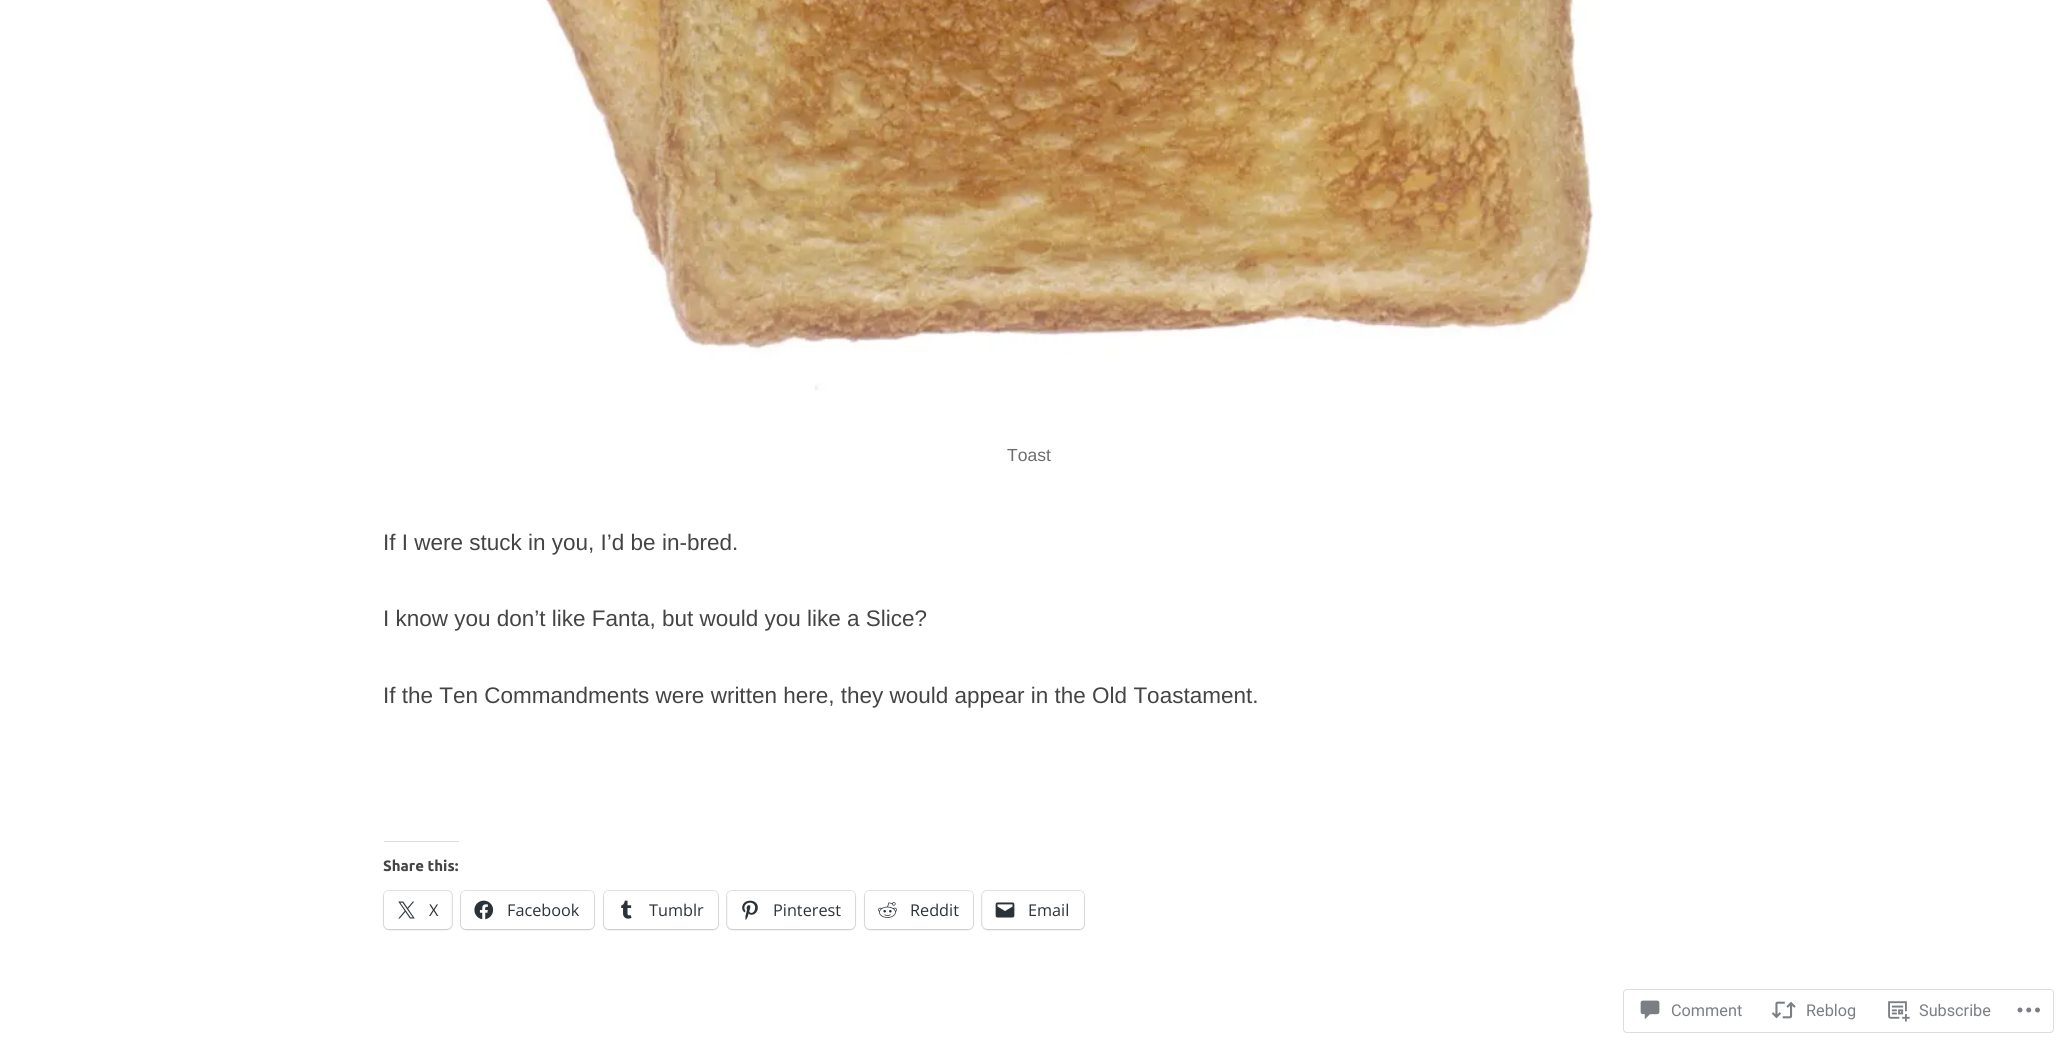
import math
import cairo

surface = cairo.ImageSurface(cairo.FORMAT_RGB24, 2066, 1045)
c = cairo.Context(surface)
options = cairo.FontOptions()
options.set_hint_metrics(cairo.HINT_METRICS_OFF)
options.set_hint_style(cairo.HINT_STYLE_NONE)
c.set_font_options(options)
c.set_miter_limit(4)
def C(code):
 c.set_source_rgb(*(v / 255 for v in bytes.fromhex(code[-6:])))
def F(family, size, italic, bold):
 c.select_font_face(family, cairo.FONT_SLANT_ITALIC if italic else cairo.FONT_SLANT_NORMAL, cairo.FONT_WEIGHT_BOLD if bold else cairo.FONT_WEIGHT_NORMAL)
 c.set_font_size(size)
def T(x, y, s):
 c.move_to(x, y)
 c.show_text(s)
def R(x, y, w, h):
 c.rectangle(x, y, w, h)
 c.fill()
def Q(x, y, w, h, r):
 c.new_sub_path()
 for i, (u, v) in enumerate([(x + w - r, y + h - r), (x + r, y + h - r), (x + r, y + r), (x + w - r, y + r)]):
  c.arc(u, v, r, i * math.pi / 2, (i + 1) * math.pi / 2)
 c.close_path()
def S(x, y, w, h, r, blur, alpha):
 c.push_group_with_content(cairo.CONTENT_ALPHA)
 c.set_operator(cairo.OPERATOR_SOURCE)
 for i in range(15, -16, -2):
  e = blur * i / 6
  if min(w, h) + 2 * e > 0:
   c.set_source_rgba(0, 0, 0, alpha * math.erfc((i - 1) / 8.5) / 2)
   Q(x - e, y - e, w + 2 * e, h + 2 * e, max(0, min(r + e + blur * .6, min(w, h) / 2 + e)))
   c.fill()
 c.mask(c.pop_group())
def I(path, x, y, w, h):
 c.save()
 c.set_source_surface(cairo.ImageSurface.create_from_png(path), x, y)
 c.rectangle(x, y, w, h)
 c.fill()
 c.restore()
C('ffffff')
c.paint()
I('1.png',540,0,1055,391)
F('Liberation Sans',17.5,0,0)
C('6d6d6d')
T(1007,461,'Toast')
F('Liberation Sans',22.5,0,0)
C('444444')
T(383,550,'If I were stuck in you, I’d be in-bred.')
T(383,626,'I know you don’t like Fanta, but would you like a Slice?')
T(383,703,'If the Ten Commandments were written here, they would appear in the Old Toastament.')
C('dcdcde')
R(384,841,75,1)
F('Ubuntu',15,0,1)
C('444444')
T(383,871,'Share this:')
Q(383.5,890.5,69,39,5.5)
C('e0e0e0')
c.set_line_width(1)
c.stroke()
C('000000')
S(384,893,67,37,5,1,.12)
C('ffffff')
Q(384,891,67,38,5)
c.fill()
I('2.png',398,901,17,18)
F('Open Sans',16.25,0,0)
C('2c3338')
T(429,916,'X')
Q(460.5,890.5,134,39,5.5)
C('e0e0e0')
c.stroke()
C('000000')
S(461,893,133,37,5,1,.12)
C('ffffff')
Q(461,891,133,38,5)
c.fill()
I('3.png',474,900,20,20)
C('2c3338')
T(507,916,'Facebook')
Q(603.5,890.5,115,39,5.5)
C('e0e0e0')
c.stroke()
C('000000')
S(604,893,114,37,5,1,.12)
C('ffffff')
Q(604,891,114,38,5)
c.fill()
I('4.png',621,900,11,19)
C('2c3338')
T(649,916,'Tumblr')
Q(726.5,890.5,129,39,5.5)
C('e0e0e0')
c.stroke()
C('000000')
S(728,893,127,37,5,1,.12)
C('ffffff')
Q(728,891,127,38,5)
c.fill()
I('5.png',742,900,16,20)
C('2c3338')
T(773,916,'Pinterest')
Q(864.5,890.5,109,39,5.5)
C('e0e0e0')
c.stroke()
C('000000')
S(865,893,108,37,5,1,.12)
C('ffffff')
Q(865,891,108,38,5)
c.fill()
I('6.png',878,902,19,16)
C('2c3338')
T(910,916,'Reddit')
Q(981.5,890.5,103,39,5.5)
C('e0e0e0')
c.stroke()
C('000000')
S(983,893,101,37,5,1,.12)
C('ffffff')
Q(983,891,101,38,5)
c.fill()
I('7.png',995,902,20,16)
C('2c3338')
T(1028,916,'Email')
Q(1623.5,989.5,430,43,3.5)
C('dddddf')
c.stroke()
I('8.png',1640,1000,20,20)
F('Roboto',16.25,0,0)
C('7b7f85')
T(1671,1016,'Comment')
I('9.png',1771,1001,25,18)
T(1806,1016,'Reblog')
I('10.png',1888,1001,22,21)
T(1919,1016,'Subscribe')
I('11.png',2017,1007,23,6)
surface.write_to_png('o.png')
